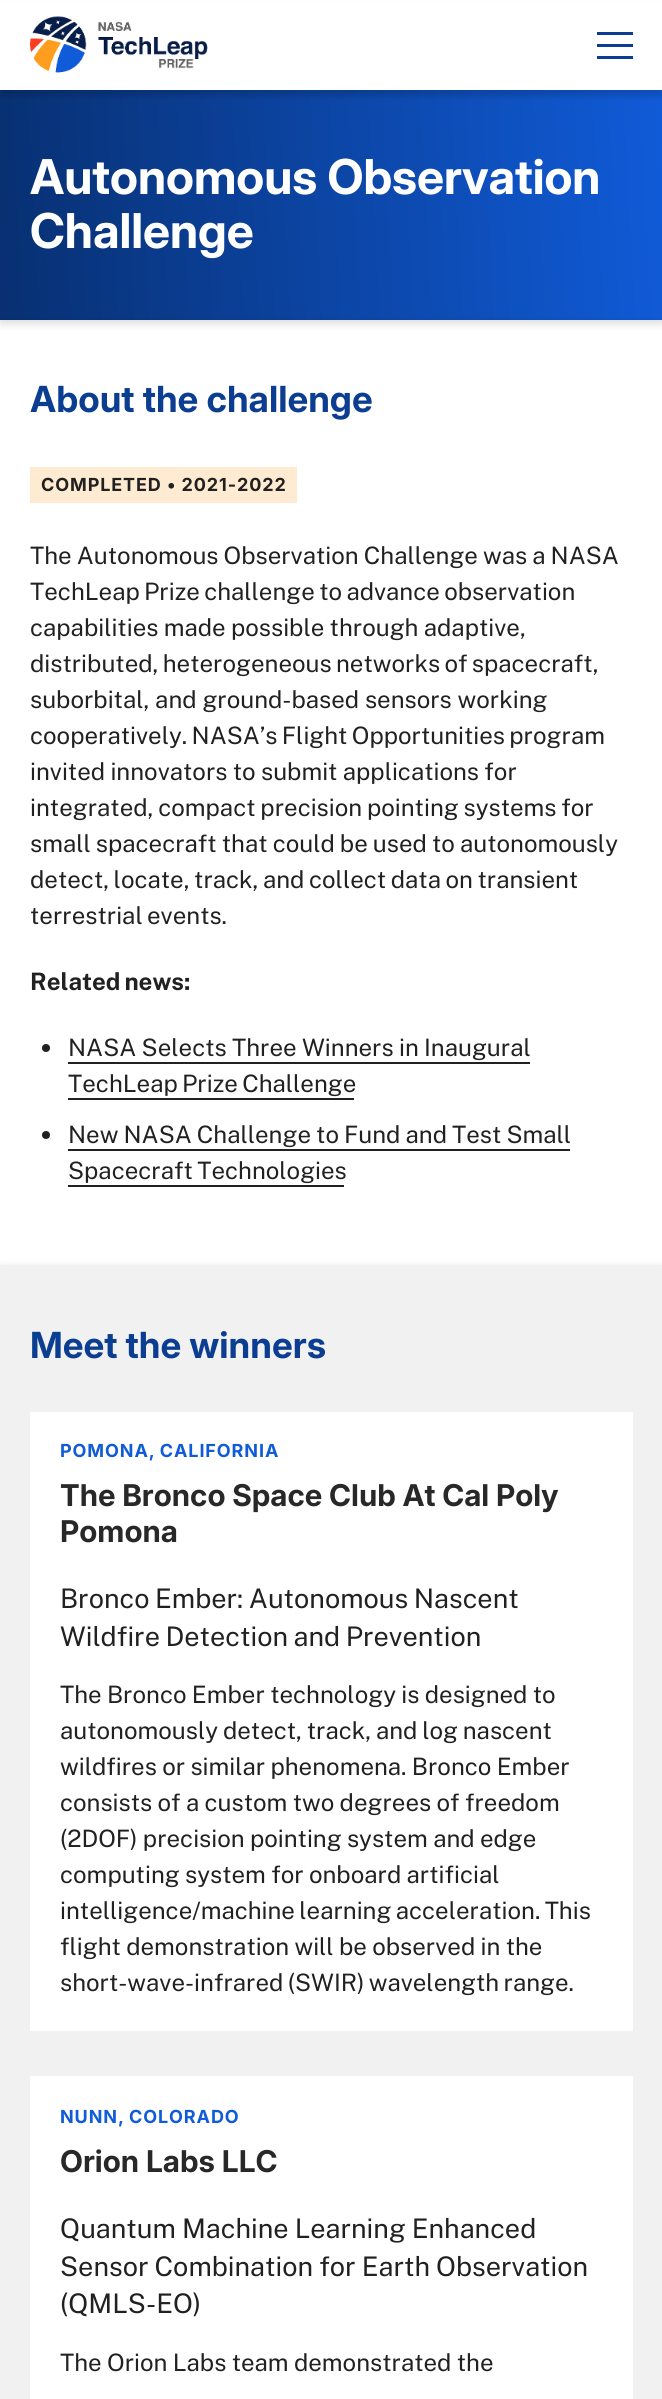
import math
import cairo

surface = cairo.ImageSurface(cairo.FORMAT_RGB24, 662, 2399)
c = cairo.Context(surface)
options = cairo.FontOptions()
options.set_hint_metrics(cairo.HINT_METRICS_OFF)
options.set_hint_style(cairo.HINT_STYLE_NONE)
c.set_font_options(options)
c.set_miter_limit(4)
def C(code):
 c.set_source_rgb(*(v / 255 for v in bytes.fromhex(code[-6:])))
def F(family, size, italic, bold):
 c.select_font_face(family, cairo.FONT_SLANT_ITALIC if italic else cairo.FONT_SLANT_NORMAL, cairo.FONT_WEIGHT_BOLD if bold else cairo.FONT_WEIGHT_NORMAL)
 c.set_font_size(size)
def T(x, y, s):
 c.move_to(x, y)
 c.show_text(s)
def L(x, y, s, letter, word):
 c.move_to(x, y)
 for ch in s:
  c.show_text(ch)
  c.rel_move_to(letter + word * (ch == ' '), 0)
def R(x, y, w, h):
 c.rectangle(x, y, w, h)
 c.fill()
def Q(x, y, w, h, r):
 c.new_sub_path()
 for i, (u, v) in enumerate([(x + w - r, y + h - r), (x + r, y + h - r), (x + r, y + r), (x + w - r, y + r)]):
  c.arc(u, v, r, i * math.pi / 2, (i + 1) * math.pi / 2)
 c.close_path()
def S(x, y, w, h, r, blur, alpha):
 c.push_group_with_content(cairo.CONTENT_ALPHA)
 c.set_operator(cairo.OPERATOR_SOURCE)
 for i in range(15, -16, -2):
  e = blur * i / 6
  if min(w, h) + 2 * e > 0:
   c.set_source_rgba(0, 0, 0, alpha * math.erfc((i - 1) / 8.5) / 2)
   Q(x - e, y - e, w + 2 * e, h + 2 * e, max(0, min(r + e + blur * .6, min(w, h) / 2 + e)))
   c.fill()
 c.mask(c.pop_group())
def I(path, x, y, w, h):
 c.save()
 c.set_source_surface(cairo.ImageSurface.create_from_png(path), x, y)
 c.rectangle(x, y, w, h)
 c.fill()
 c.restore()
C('ffffff')
c.paint()
C('000000')
S(0,93,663,230,0,4.5,.15)
gradient = cairo.LinearGradient(-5.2,223,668,187)
gradient.add_color_stop_rgba(0,0.031,0.188,0.447,1)
gradient.add_color_stop_rgba(1,0.063,0.357,0.847,1)
c.set_source(gradient)
R(0,90,662,230)
C('000000')
S(0,6,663,90,0,3,.15)
C('ffffff')
R(0,2,662,88)
I('1.png',30,16,178,57)
C('0b3d91')
R(597,32,36,3)
R(597,56,36,3)
R(597,44,36,3)
F('Inter',48,0,1)
C('ffffff')
T(30,194,'Autonomous Observation')
T(30,248,'Challenge')
c.save()
c.set_fill_rule(cairo.FILL_RULE_EVEN_ODD)
c.new_path()
c.move_to(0,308)
c.line_to(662,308)
c.line_to(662,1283)
c.line_to(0,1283)
c.close_path()
c.move_to(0,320)
c.line_to(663,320)
c.line_to(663,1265)
c.line_to(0,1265)
c.close_path()
c.clip()
C('000000')
S(0,323,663,945,0,4.5,.15)
c.restore()
F('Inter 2',36,0,1)
C('0b3d91')
T(30,412,'About the challenge')
C('ffebd1')
R(30,467,267,36)
F('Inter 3',18,0,1)
C('212121')
L(41,491,'COMPLETED • 2021-2022',.9,0)
F('Public Sans',24,0,0)
L(30,564,'The Autonomous Observation Challenge was a NASA',0,-.75)
L(30,600,'TechLeap Prize challenge to advance observation',0,-1.5)
L(30,636,'capabilities made possible through adaptive,',0,-.5)
L(30,672,'distributed, heterogeneous networks of spacecraft,',0,-1.5)
T(30,708,'suborbital, and ground-based sensors working')
L(30,744,'cooperatively. NASA’s Flight Opportunities program',0,-1.5)
L(30,780,'invited innovators to submit applications for',0,-.5)
L(30,816,'integrated, compact precision pointing systems for',0,-1)
L(30,852,'small spacecraft that could be used to autonomously',0,-.75)
L(30,888,'detect, locate, track, and collect data on transient',0,-1.25)
L(30,924,'terrestrial events.',0,-1.5)
F('Public Sans',24,0,1)
L(30,990,'Related news:',0,-1.5)
c.new_path()
c.arc(46,1048,4,0,2 * math.pi)
c.fill()
F('Public Sans',24,0,0)
L(68,1056,'NASA Selects Three Winners in Inaugural',0,-.5)
R(68,1062,462,2)
L(68,1092,'TechLeap Prize Challenge',0,-1.5)
R(68,1098,286,2)
c.new_path()
c.arc(46,1135,4,0,2 * math.pi)
c.fill()
L(68,1143,'New NASA Challenge to Fund and Test Small',0,-.75)
R(68,1149,502,2)
L(68,1179,'Spacecraft Technologies',0,-1.5)
R(68,1185,276,2)
C('000000')
S(0,1268,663,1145,0,4.5,.15)
C('f1f1f1')
R(0,1265,662,1134)
F('Inter 2',36,0,1)
C('0b3d91')
T(30,1358,'Meet the winners')
C('ffffff')
R(30,1412,603,619)
F('Inter 3',18,0,1)
C('105bd8')
L(60,1457,'POMONA, CALIFORNIA',.9,-1)
F('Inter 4',30,0,1)
C('282828')
L(60,1506,'The Bronco Space Club At Cal Poly',0,-.25)
T(60,1542,'Pomona')
F('Public Sans',27,0,0)
C('212121')
L(60,1608,'Bronco Ember: Autonomous Nascent',0,-1)
L(60,1646,'Wildfire Detection and Prevention',0,-1)
F('Public Sans',24,0,0)
L(60,1703,'The Bronco Ember technology is designed to',0,-.5)
L(60,1739,'autonomously detect, track, and log nascent',0,-1)
L(60,1775,'wildfires or similar phenomena. Bronco Ember',0,-.5)
L(60,1811,'consists of a custom two degrees of freedom',0,-.5)
L(60,1847,'(2DOF) precision pointing system and edge',0,-.5)
L(60,1883,'computing system for onboard artificial',0,-.5)
L(60,1919,'intelligence/machine learning acceleration. This',0,-1.5)
L(60,1955,'flight demonstration will be observed in the',0,-.5)
L(60,1991,'short-wave-infrared (SWIR) wavelength range.',0,-1.5)
C('ffffff')
R(30,2076,603,323)
F('Inter 3',18,0,1)
C('105bd8')
L(60,2123,'NUNN, COLORADO',.9,-1)
F('Inter 4',30,0,1)
C('282828')
T(60,2172,'Orion Labs LLC')
F('Public Sans',27,0,0)
C('212121')
L(60,2238,'Quantum Machine Learning Enhanced',0,-.5)
L(60,2276,'Sensor Combination for Earth Observation',0,-.5)
T(60,2313,'(QMLS-EO)')
F('Public Sans',24,0,0)
L(60,2371,'The Orion Labs team demonstrated the',0,-.5)
surface.write_to_png('o.png')
